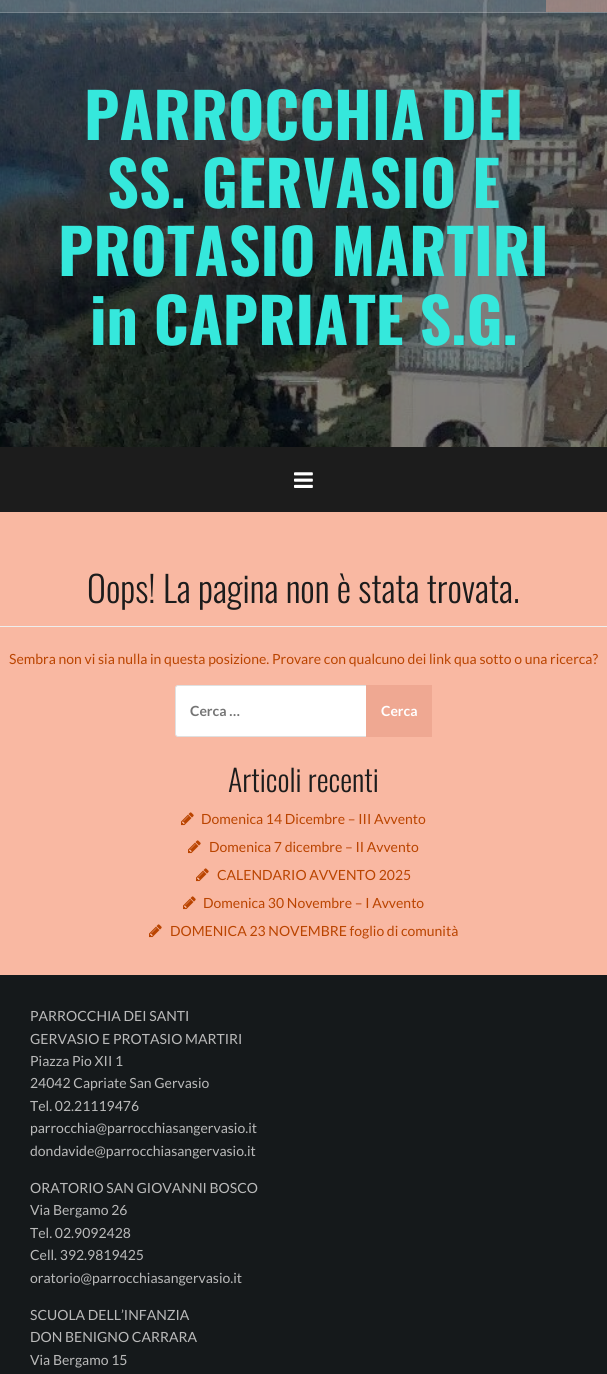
import math
import cairo

surface = cairo.ImageSurface(cairo.FORMAT_RGB24, 607, 1374)
c = cairo.Context(surface)
options = cairo.FontOptions()
options.set_hint_metrics(cairo.HINT_METRICS_OFF)
options.set_hint_style(cairo.HINT_STYLE_NONE)
c.set_font_options(options)
c.set_miter_limit(4)
def C(code):
 c.set_source_rgb(*(v / 255 for v in bytes.fromhex(code[-6:])))
def F(family, size, italic, bold):
 c.select_font_face(family, cairo.FONT_SLANT_ITALIC if italic else cairo.FONT_SLANT_NORMAL, cairo.FONT_WEIGHT_BOLD if bold else cairo.FONT_WEIGHT_NORMAL)
 c.set_font_size(size)
def T(x, y, s):
 c.move_to(x, y)
 c.show_text(s)
def R(x, y, w, h):
 c.rectangle(x, y, w, h)
 c.fill()
def Q(x, y, w, h, r):
 c.new_sub_path()
 for i, (u, v) in enumerate([(x + w - r, y + h - r), (x + r, y + h - r), (x + r, y + r), (x + w - r, y + r)]):
  c.arc(u, v, r, i * math.pi / 2, (i + 1) * math.pi / 2)
 c.close_path()
def I(path, x, y, w, h):
 c.save()
 c.set_source_surface(cairo.ImageSurface.create_from_png(path), x, y)
 c.rectangle(x, y, w, h)
 c.fill()
 c.restore()
C('f9b8a2')
c.paint()
I('1.png',0,0,607,447)
c.set_source_rgba(1,1,1,0.15)
R(0,0,607,13)
c.set_source_rgba(1,1,1,0.2)
R(0,12,607,1)
c.set_source_rgba(0.937,0.659,0.573,0.4)
R(546,0,61,12)
F('Oswald',62,0,1)
C('35e8dc')
T(84,140,'PARROCCHIA DEI')
T(107,208,'SS. GERVASIO E')
T(58,276,'PROTASIO MARTIRI')
T(90,345,'in CAPRIATE S.G.')
c.set_source_rgba(1,1,1,0.2)
R(289,381,30,1)
C('1c1c1c')
R(0,447,607,65)
I('2.png',294,472,19,16)
C('eeeeee')
R(0,626,607,1)
F('Oswald Light',36,0,0)
C('1c1c1c')
T(87,603,'Oops! La pagina non è stata trovata.')
F('Lato',14,0,0)
C('ba4400')
T(9,664,'Sembra non vi sia nulla in questa posizione. Provare con qualcuno dei link qua sotto o una ricerca?')
C('ffffff')
Q(175.5,685.5,217,51,2.5)
c.fill_preserve()
C('e0e0e0')
c.set_line_width(1)
c.stroke()
F('Lato',14,0,1)
C('757575')
T(190,716,'Cerca …')
C('efa892')
R(366,685,66,52)
C('ffffff')
T(381,716,'Cerca')
F('Oswald Light',30,0,0)
C('1c1c1c')
T(228,792,'Articoli recenti')
I('3.png',181,812,13,14)
F('Lato',14,0,0)
C('ba4400')
T(201,824,'Domenica 14 Dicembre – III Avvento')
I('3.png',188,840,13,14)
T(209,852,'Domenica 7 dicembre – II Avvento')
I('3.png',196,868,13,14)
T(217,880,'CALENDARIO AVVENTO 2025')
I('3.png',183,896,13,14)
T(203,908,'Domenica 30 Novembre – I Avvento')
I('3.png',149,924,13,14)
T(170,936,'DOMENICA 23 NOVEMBRE foglio di comunità')
C('15191b')
R(0,975,607,399)
C('bababa')
T(30,1021,'PARROCCHIA DEI SANTI')
T(30,1044,'GERVASIO E PROTASIO MARTIRI')
T(30,1066,'Piazza Pio XII 1')
T(30,1088,'24042 Capriate San Gervasio')
T(30,1111,'Tel. 02.21119476')
T(30,1133,'parrocchia@parrocchiasangervasio.it')
T(30,1156,'dondavide@parrocchiasangervasio.it')
T(30,1193,'ORATORIO SAN GIOVANNI BOSCO')
T(30,1215,'Via Bergamo 26')
T(30,1238,'Tel. 02.9092428')
T(30,1260,'Cell. 392.9819425')
T(30,1283,'oratorio@parrocchiasangervasio.it')
T(30,1320,'SCUOLA DELL’INFANZIA')
T(30,1342,'DON BENIGNO CARRARA')
T(30,1365,'Via Bergamo 15')
surface.write_to_png('o.png')
